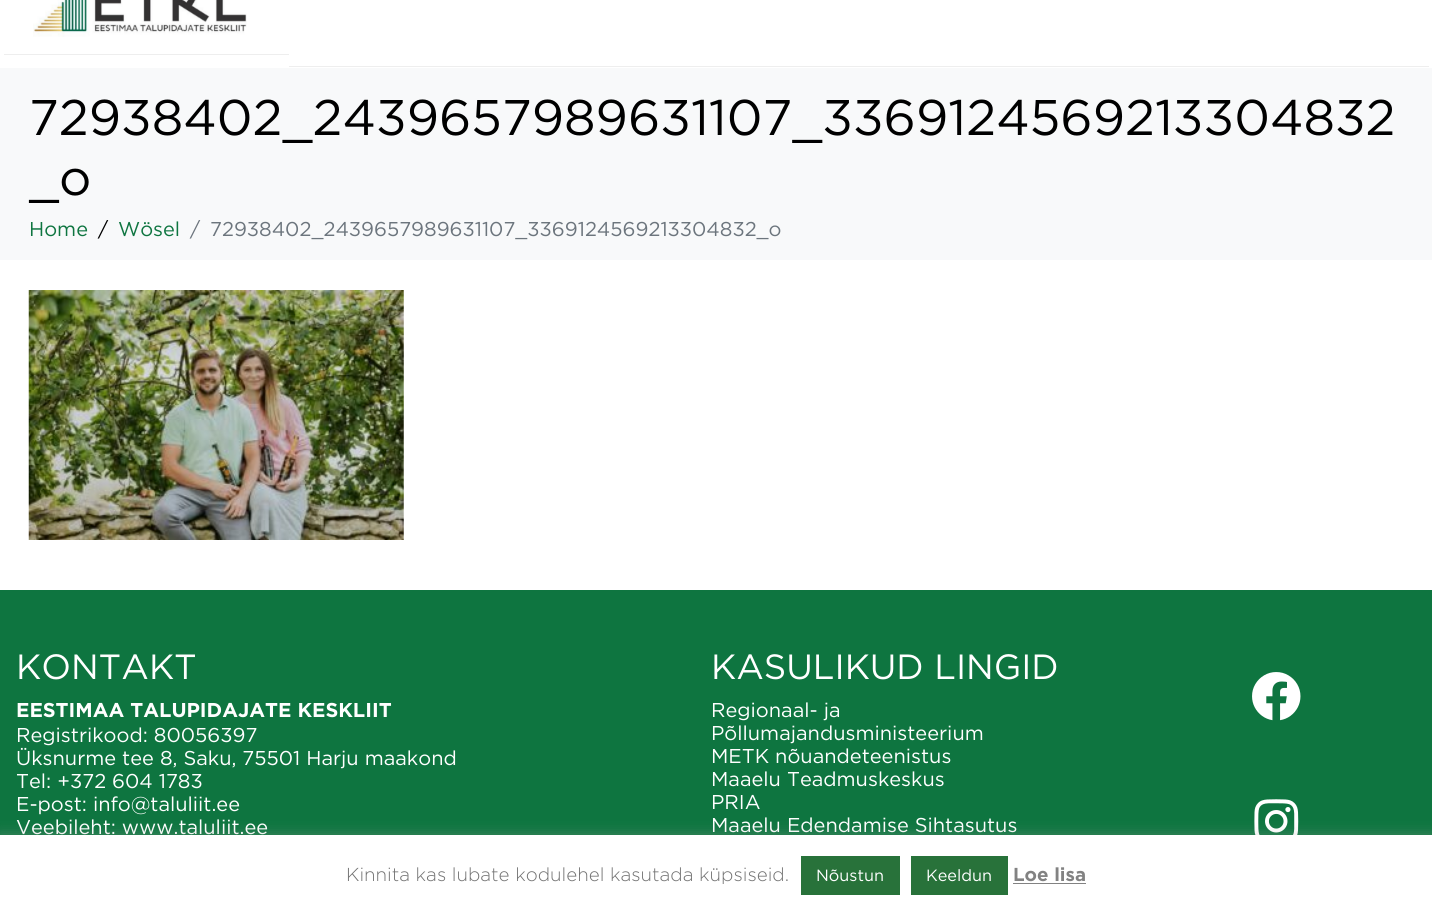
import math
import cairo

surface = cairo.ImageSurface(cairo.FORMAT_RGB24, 1432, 909)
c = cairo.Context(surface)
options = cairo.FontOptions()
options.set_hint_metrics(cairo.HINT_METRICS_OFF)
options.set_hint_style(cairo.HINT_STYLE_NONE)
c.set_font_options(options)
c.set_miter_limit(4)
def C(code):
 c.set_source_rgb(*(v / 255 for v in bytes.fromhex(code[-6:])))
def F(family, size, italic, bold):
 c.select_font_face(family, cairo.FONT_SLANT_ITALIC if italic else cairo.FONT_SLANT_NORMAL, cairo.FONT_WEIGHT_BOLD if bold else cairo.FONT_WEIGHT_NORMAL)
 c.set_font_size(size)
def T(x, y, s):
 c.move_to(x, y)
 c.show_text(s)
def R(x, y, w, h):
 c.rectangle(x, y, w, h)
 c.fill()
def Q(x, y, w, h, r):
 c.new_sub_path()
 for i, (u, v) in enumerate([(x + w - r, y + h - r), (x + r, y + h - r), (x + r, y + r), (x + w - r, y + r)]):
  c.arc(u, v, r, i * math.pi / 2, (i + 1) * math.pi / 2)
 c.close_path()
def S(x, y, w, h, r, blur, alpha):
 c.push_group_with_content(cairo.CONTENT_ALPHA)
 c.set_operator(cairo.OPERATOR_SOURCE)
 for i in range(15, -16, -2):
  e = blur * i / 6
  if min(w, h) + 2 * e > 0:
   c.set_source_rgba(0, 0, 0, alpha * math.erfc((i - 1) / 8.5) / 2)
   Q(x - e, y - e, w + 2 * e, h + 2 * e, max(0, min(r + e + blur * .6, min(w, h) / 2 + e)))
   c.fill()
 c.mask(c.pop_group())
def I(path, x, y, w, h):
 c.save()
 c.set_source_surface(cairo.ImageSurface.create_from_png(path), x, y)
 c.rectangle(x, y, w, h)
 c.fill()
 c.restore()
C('ffffff')
c.paint()
C('eeeeee')
R(4,54,285,1)
I('1.png',33,0,214,37)
R(289,66,1140,1)
C('f8f9fa')
R(0,68,1432,192)
F('Gotham',50,0,0)
C('000000')
T(29,135,'72938402_2439657989631107_3369124569213304832')
T(29,195,'_o')
F('Gotham',20,0,0)
C('0e7540')
T(29,236,'Home')
C('000000')
T(98,236,'/')
C('0e7540')
T(118,236,'Wösel')
C('6c757d')
T(190,236,'/')
T(210,236,'72938402_2439657989631107_3369124569213304832_o')
I('2.png',28,290,376,250)
C('0e7540')
R(0,590,1432,245)
F('Gotham',35,0,0)
C('ffffff')
T(16,679,'KONTAKT')
F('Gotham',20,0,1)
T(16,717,'EESTIMAA TALUPIDAJATE KESKLIIT')
F('Gotham',20,0,0)
T(16,742,'Registrikood: 80056397')
T(16,765,'Üksnurme tee 8, Saku, 75501 Harju maakond')
T(16,788,'Tel: +372 604 1783')
T(16,811,'E-post: info@taluliit.ee')
T(16,834,'Veebileht: www.taluliit.ee')
F('Gotham',35,0,0)
T(711,679,'KASULIKUD LINGID')
F('Gotham',20,0,0)
T(711,717,'Regionaal- ja')
T(711,740,'Põllumajandusministeerium')
T(711,763,'METK nõuandeteenistus')
T(711,786,'Maaelu Teadmuskeskus')
T(711,809,'PRIA')
T(711,832,'Maaelu Edendamise Sihtasutus')
I('3.png',1252,672,49,49)
I('4.png',1254,799,45,36)
C('acabab')
S(0,834,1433,75,0,6,.3)
C('ffffff')
R(0,835,1432,74)
F('Gotham Light',18.75,0,0)
C('727272')
T(346,881,'Kinnita kas lubate kodulehel kasutada küpsiseid.')
C('28723a')
R(801,856,99,39)
F('Gotham',16.25,0,0)
C('ffffff')
T(816,881,'Nõustun')
C('28723a')
R(911,856,97,39)
C('ffffff')
T(926,881,'Keeldun')
F('Gotham',18.75,0,1)
C('828282')
T(1013,881,'Loe lisa')
R(1013,883,73,1)
surface.write_to_png('o.png')
